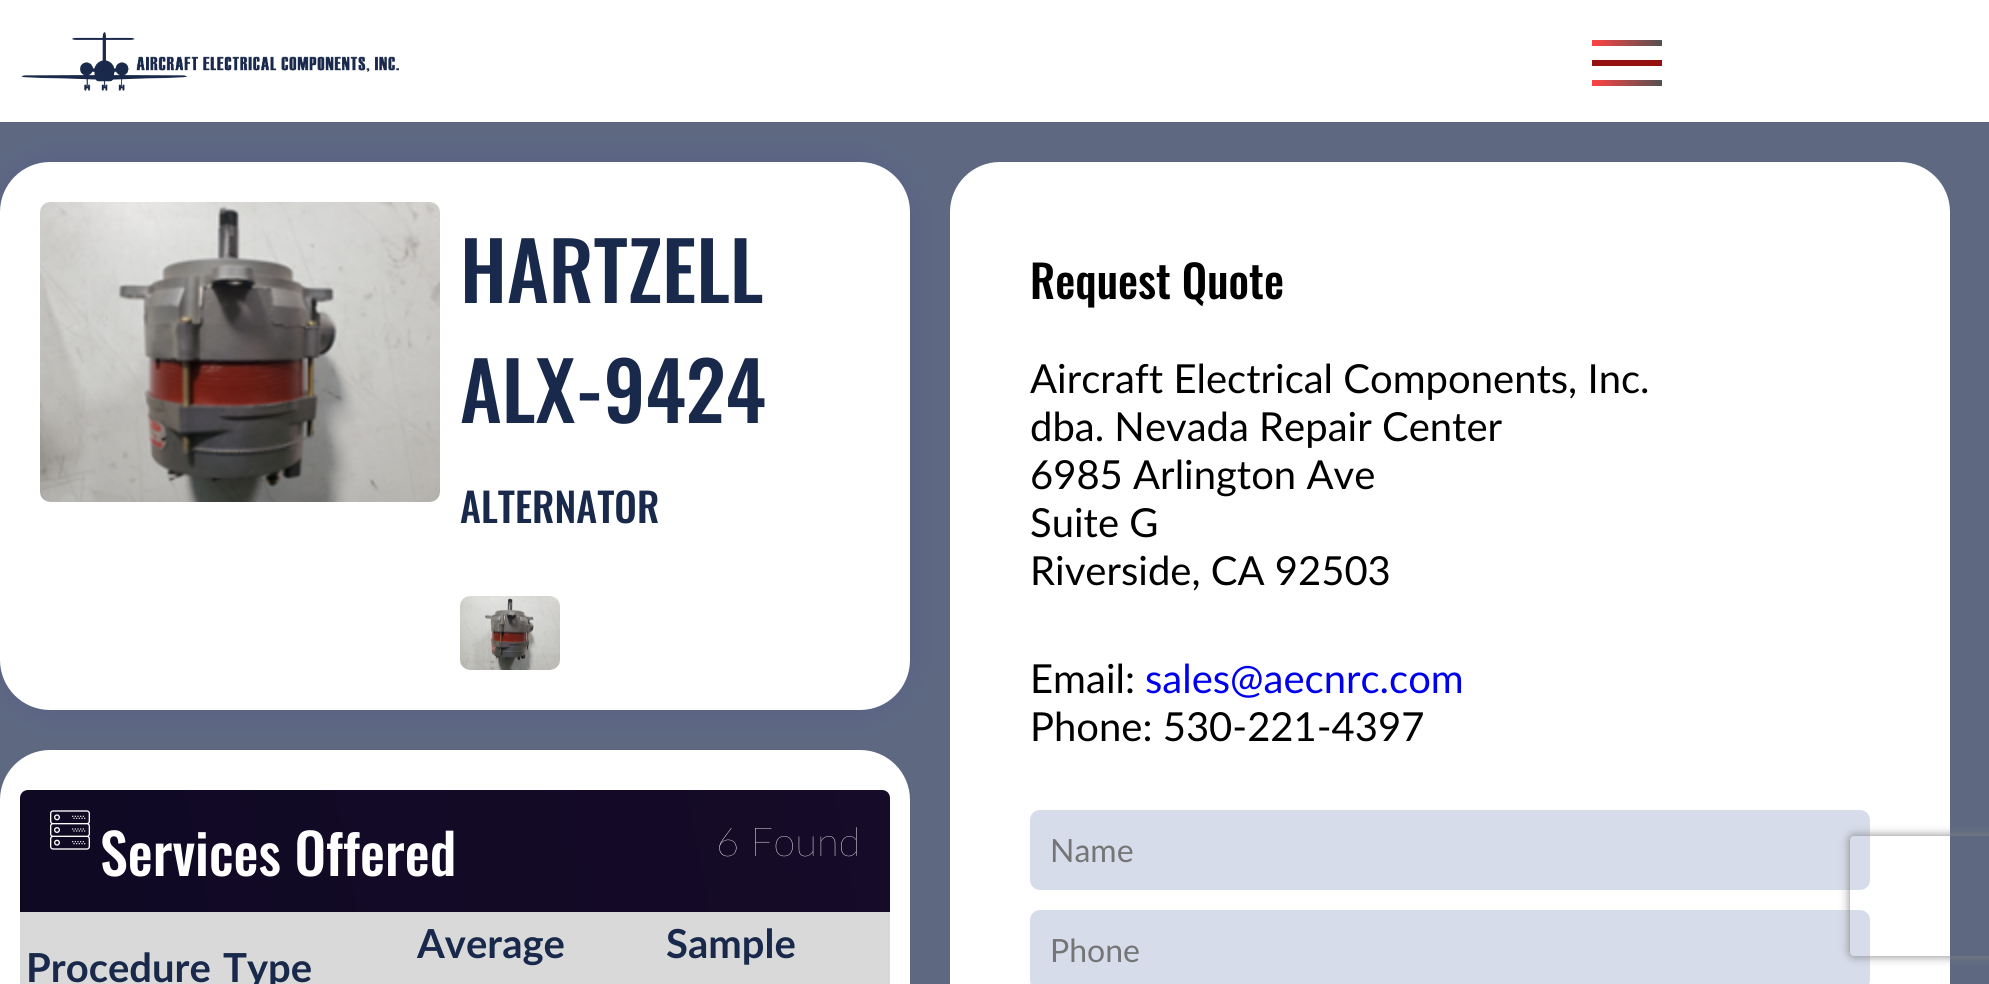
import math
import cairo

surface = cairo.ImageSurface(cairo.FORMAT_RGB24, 1989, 984)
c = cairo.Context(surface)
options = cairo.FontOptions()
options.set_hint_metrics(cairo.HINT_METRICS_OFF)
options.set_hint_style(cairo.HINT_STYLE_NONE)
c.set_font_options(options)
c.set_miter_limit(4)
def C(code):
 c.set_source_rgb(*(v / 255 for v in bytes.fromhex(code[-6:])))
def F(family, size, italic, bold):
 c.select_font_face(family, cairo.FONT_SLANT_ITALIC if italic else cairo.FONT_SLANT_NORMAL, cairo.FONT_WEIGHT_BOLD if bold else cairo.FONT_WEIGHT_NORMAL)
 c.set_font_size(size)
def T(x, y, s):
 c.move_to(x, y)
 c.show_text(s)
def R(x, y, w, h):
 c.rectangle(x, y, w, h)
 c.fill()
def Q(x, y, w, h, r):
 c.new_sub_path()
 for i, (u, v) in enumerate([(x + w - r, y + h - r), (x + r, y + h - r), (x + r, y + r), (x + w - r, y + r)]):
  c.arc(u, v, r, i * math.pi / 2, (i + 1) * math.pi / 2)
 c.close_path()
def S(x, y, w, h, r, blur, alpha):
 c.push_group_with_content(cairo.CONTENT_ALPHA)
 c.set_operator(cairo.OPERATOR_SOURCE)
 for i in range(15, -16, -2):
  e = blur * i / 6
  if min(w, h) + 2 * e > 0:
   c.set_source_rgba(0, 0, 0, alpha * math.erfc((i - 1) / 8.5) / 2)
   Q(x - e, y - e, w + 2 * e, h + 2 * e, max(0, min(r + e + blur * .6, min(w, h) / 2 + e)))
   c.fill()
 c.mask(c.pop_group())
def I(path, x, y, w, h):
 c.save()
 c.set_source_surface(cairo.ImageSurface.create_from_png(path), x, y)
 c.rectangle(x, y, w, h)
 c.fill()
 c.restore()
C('ffffff')
c.paint()
I('1.png',21,32,378,59)
C('961010')
R(1592,60,70,6)
gradient = cairo.LinearGradient(1592,43,1662,43)
gradient.add_color_stop_rgba(0,1,0.259,0.259,1)
gradient.add_color_stop_rgba(1,0.322,0.322,0.322,1)
c.set_source(gradient)
R(1592,40,70,6)
gradient = cairo.LinearGradient(1592,83,1662,83)
gradient.add_color_stop_rgba(0,1,0.259,0.259,1)
gradient.add_color_stop_rgba(1,0.322,0.322,0.322,1)
c.set_source(gradient)
R(1592,80,70,6)
C('5e6981')
R(0,122,1989,862)
C('2600c8')
S(0,162,910,548,50,18,.1)
C('ffffff')
Q(0,162,910,548,50)
c.fill()
I('2.png',40,202,400,300)
F('Oswald Medium',80,0,0)
C('19294b')
T(460,303,'HARTZELL')
T(460,423,'ALX-9424')
F('Oswald Medium',40,0,0)
T(460,523,'ALTERNATOR')
I('3.png',460,596,100,74)
C('ffffff')
Q(0,750,910,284,50)
c.fill()
gradient = cairo.LinearGradient(24,935,886,767)
gradient.add_color_stop_rgba(0,0.059,0.035,0.141,1)
gradient.add_color_stop_rgba(1,0.086,0.043,0.157,1)
c.set_source(gradient)
c.new_path()
c.move_to(28,790)
c.line_to(882,790)
c.curve_to(886.5,790,890,793.5,890,798)
c.line_to(890,912)
c.line_to(20,912)
c.line_to(20,798)
c.curve_to(20,793.5,23.5,790,28,790)
c.close_path()
c.fill()
I('4.png',50,810,40,40)
F('Oswald Medium',56,0,0)
C('ffffff')
T(100,876,'Services Offered')
F('Lato ExtraLight',40,0,0)
T(716,856,'6 Found')
C('d9d9d9')
R(20,912,870,72)
F('Lato',40,0,1)
C('19294b')
T(26,982,'Procedure')
T(223,982,'Type')
T(417,958,'Average')
T(666,958,'Sample')
C('ffffff')
Q(950,162,1000,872,50)
c.fill()
F('Oswald Medium',45,0,0)
C('000000')
T(1030,299,'Request Quote')
F('Lato',40,0,0)
T(1030,393,'Aircraft Electrical Components, Inc.')
T(1030,441,'dba. Nevada Repair Center')
T(1030,489,'6985 Arlington Ave')
T(1030,537,'Suite G')
T(1030,585,'Riverside, CA 92503')
T(1030,693,'Email:')
C('0000ee')
T(1145,693,'sales@aecnrc.com')
C('000000')
T(1030,741,'Phone: 530-221-4397')
C('d6dcea')
Q(1030,810,840,80,10)
c.fill()
F('Lato',32,0,0)
C('757575')
T(1050,862,'Name')
C('d6dcea')
Q(1030,910,840,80,10)
c.fill()
c.save()
c.set_fill_rule(cairo.FILL_RULE_EVEN_ODD)
c.new_path()
c.move_to(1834,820)
c.line_to(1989,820)
c.line_to(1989,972)
c.line_to(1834,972)
c.close_path()
c.move_to(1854,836)
c.line_to(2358,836)
c.curve_to(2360,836,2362,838,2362,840)
c.line_to(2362,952)
c.curve_to(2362,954,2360,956,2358,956)
c.line_to(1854,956)
c.curve_to(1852,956,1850,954,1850,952)
c.line_to(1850,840)
c.curve_to(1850,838,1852,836,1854,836)
c.close_path()
c.clip()
C('808080')
S(1850,836,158,120,4,5,1)
c.restore()
C('757575')
T(1050,962,'Phone')
surface.write_to_png('o.png')
